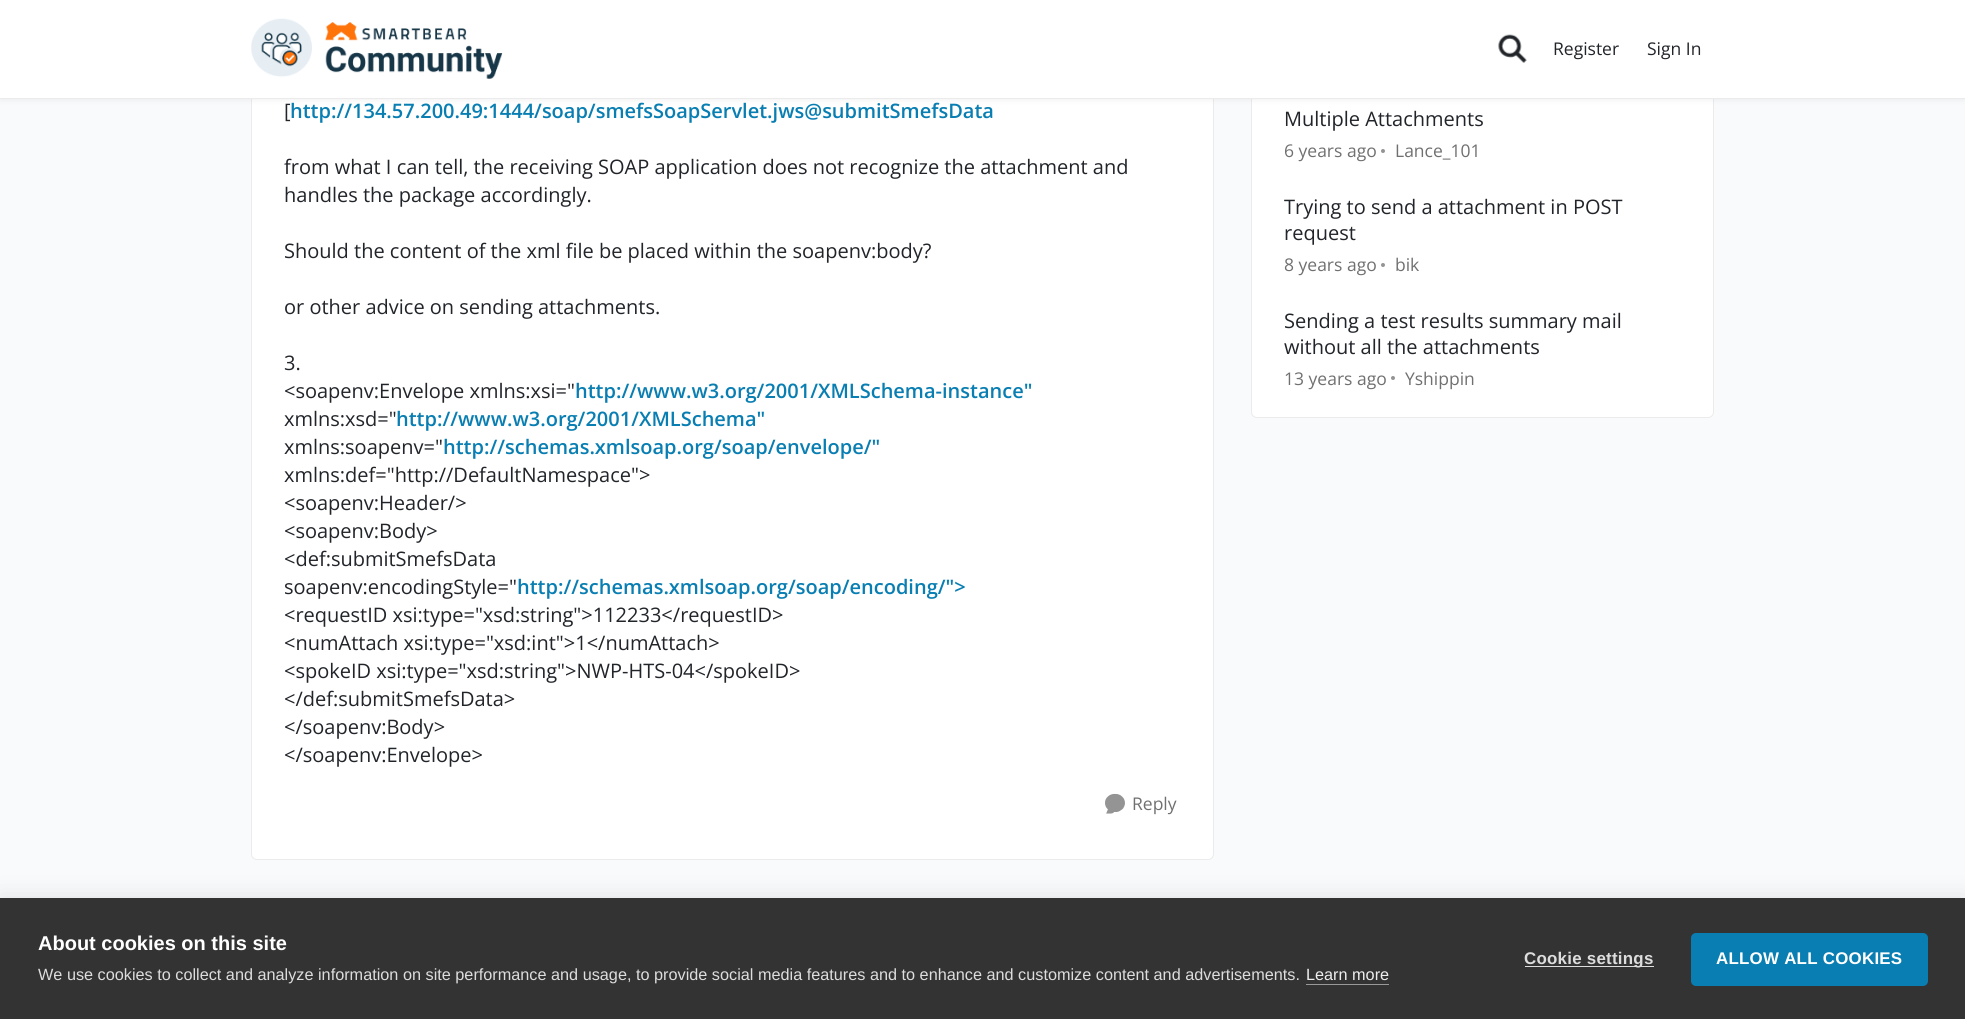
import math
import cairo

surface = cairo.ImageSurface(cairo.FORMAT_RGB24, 1965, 1019)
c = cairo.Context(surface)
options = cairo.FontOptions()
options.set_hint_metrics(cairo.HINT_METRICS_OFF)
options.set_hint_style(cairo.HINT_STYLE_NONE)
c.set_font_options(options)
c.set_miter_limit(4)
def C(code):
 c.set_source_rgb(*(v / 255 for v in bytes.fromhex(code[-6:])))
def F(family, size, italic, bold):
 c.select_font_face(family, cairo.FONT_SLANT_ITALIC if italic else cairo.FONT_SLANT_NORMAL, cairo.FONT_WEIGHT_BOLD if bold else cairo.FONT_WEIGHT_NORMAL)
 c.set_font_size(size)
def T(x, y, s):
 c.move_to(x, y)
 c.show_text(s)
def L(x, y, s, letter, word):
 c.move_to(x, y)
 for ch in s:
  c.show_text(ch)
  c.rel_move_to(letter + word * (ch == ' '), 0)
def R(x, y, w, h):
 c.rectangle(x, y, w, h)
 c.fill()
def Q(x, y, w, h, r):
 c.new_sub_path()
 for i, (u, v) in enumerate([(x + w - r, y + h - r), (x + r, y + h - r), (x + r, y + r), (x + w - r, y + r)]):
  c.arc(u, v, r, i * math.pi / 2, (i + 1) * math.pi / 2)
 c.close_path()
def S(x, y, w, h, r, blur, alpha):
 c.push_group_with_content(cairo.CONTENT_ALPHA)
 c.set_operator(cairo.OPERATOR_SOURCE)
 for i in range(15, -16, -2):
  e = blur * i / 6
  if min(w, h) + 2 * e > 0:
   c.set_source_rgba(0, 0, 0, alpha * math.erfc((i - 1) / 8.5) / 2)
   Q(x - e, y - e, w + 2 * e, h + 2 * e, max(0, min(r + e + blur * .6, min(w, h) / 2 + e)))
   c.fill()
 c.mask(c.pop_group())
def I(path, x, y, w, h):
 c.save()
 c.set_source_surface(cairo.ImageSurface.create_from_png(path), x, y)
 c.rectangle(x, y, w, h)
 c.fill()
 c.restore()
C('f8fafb')
c.paint()
C('ffffff')
Q(251.5,-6.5,962,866,5.5)
c.fill_preserve()
C('ebebeb')
c.set_line_width(1)
c.stroke()
C('ffffff')
Q(1251.5,-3.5,462,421,5.5)
c.fill_preserve()
C('ebebeb')
c.stroke()
C('333333')
S(0,3,1965,98,0,2.5,.06)
C('ffffff')
R(0,0,1965,98)
C('ebebeb')
R(0,98,1965,1)
I('1.png',251,18,252,61)
I('2.png',1498,34,29,29)
F('Open Sans',17.5,0,0)
C('212429')
T(1553,55,'Register')
T(1647,55,'Sign In')
F('Open Sans',20,0,0)
T(284,118,'[')
F('Open Sans SemiBold',20,0,0)
C('097eb2')
T(290,118,'http://134.57.200.49:1444/soap/smefsSoapServlet.jws@submitSmefsData')
F('Open Sans',20,0,0)
C('212429')
T(284,174,'from what I can tell, the receiving SOAP application does not recognize the attachment and')
T(284,202,'handles the package accordingly.')
T(284,258,'Should the content of the xml file be placed within the soapenv:body?')
T(284,314,'or other advice on sending attachments.')
T(284,370,'3.')
T(284,398,'<soapenv:Envelope xmlns:xsi="')
F('Open Sans SemiBold',20,0,0)
C('097eb2')
T(575,398,'http://www.w3.org/2001/XMLSchema-instance"')
F('Open Sans',20,0,0)
C('212429')
T(284,426,'xmlns:xsd="')
F('Open Sans SemiBold',20,0,0)
C('097eb2')
T(396,426,'http://www.w3.org/2001/XMLSchema"')
F('Open Sans',20,0,0)
C('212429')
T(284,454,'xmlns:soapenv="')
F('Open Sans SemiBold',20,0,0)
C('097eb2')
T(443,454,'http://schemas.xmlsoap.org/soap/envelope/"')
F('Open Sans',20,0,0)
C('212429')
T(284,482,'xmlns:def="http://DefaultNamespace">')
T(284,510,'<soapenv:Header/>')
T(284,538,'<soapenv:Body>')
T(284,566,'<def:submitSmefsData')
T(284,594,'soapenv:encodingStyle="')
F('Open Sans SemiBold',20,0,0)
C('097eb2')
T(517,594,'http://schemas.xmlsoap.org/soap/encoding/">')
F('Open Sans',20,0,0)
C('212429')
T(284,622,'<requestID xsi:type="xsd:string">112233</requestID>')
T(284,650,'<numAttach xsi:type="xsd:int">1</numAttach>')
T(284,678,'<spokeID xsi:type="xsd:string">NWP-HTS-04</spokeID>')
T(284,706,'</def:submitSmefsData>')
T(284,734,'</soapenv:Body>')
T(284,762,'</soapenv:Envelope>')
I('3.png',1105,793,20,21)
F('Open Sans',17.5,0,0)
C('707070')
T(1132,810,'Reply')
F('Open Sans',20,0,0)
C('212429')
T(1284,126,'Multiple Attachments')
F('Open Sans',17.5,0,0)
C('707070')
T(1284,157,'6 years ago')
C('949494')
c.new_path()
c.arc(1383,151,2,0,2 * math.pi)
c.fill()
C('707070')
T(1395,157,'Lance_101')
F('Open Sans',20,0,0)
C('212429')
T(1284,214,'Trying to send a attachment in POST')
T(1284,240,'request')
F('Open Sans',17.5,0,0)
C('707070')
T(1284,271,'8 years ago')
C('949494')
c.new_path()
c.arc(1383,265,2,0,2 * math.pi)
c.fill()
C('707070')
T(1395,271,'bik')
F('Open Sans',20,0,0)
C('212429')
T(1284,328,'Sending a test results summary mail')
T(1284,354,'without all the attachments')
F('Open Sans',17.5,0,0)
C('707070')
T(1284,385,'13 years ago')
C('949494')
c.new_path()
c.arc(1393,378,2,0,2 * math.pi)
c.fill()
C('707070')
T(1405,385,'Yshippin')
C('000000')
S(0,898,1965,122,0,12.5,.1)
C('333333')
R(0,898,1965,121)
F('Liberation Sans',20,0,1)
C('ffffff')
T(38,950,'About cookies on this site')
F('Liberation Sans',16.25,0,0)
C('dddddd')
T(38,980,'We use cookies to collect and analyze information on site performance and usage, to provide social media features and to enhance and customize content and advertisements.')
C('eeeeee')
T(1306,980,'Learn more')
C('999999')
R(1306,984,83,1)
C('dddddd')
R(1525,966,129,1)
F('Liberation Sans',16.9,0,1)
L(1524,964,'Cookie settings',.25,0)
C('097eb2')
Q(1691,933,237,53,5)
c.fill()
C('ffffff')
L(1716,964,'ALLOW ALL COOKIES',.25,0)
surface.write_to_png('o.png')
